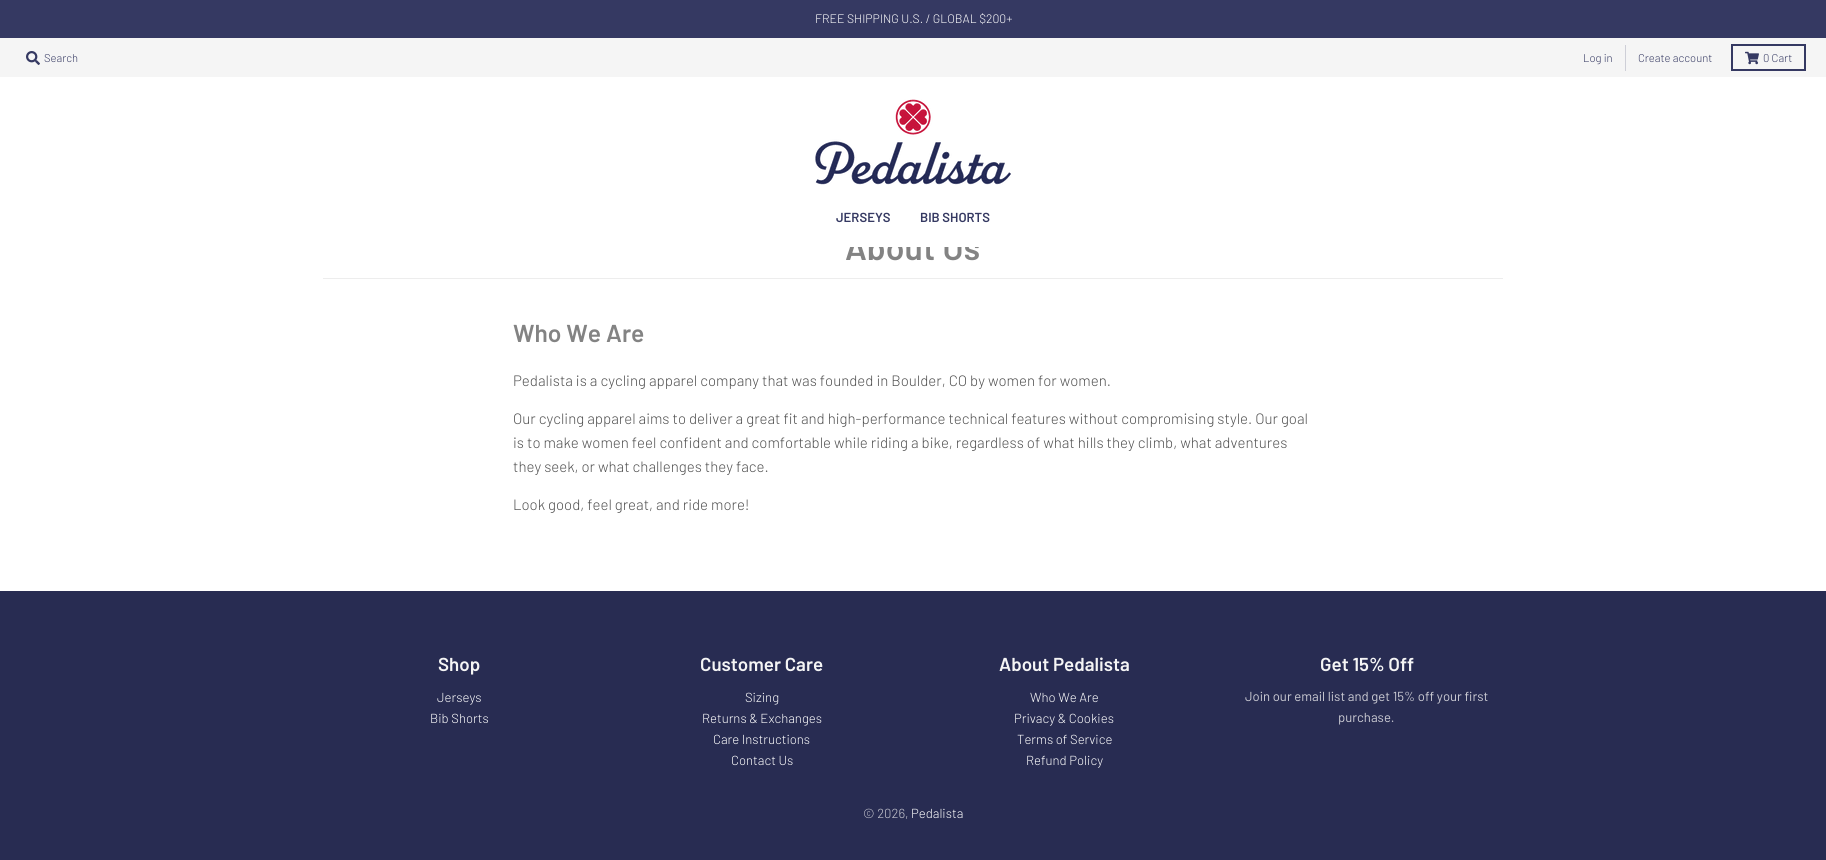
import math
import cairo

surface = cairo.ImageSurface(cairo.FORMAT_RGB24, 1826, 860)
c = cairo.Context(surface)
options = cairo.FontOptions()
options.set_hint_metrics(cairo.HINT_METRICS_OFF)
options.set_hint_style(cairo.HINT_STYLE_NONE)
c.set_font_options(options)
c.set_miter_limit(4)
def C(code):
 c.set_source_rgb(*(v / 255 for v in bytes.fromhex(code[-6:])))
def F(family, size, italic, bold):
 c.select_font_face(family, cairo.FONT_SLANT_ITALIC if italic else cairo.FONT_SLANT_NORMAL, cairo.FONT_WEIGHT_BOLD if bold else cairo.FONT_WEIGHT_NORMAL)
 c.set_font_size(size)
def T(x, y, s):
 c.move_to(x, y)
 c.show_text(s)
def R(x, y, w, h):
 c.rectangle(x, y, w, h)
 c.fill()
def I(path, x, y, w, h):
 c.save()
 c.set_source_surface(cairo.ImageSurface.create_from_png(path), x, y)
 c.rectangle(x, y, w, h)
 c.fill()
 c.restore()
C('ffffff')
c.paint()
C('353962')
R(0,0,1826,38)
F('Barlow Light',12.25,0,0)
C('ffffff')
T(815,23,'FREE SHIPPING U.S. / GLOBAL $200+')
C('f5f5f5')
R(0,38,1826,39)
I('1.png',26,51,14,14)
F('Barlow Light',11.25,0,0)
C('353962')
T(44,62,'Search')
C('cecfd7')
R(1625,45,1,26)
C('353962')
T(1583,62,'Log in')
T(1638,62,'Create account')
c.rectangle(1732,45,73,25)
c.stroke()
I('2.png',1745,51,14,14)
T(1763,62,'0 Cart')
F('Barlow SemiBold',33.75,0,0)
C('838383')
T(845,260,'About Us')
C('ffffff')
R(850,236,129,11)
I('3.png',815,99,196,86)
F('Barlow SemiBold',13.1,0,0)
C('353962')
T(836,222,'JERSEYS')
T(920,222,'BIB SHORTS')
C('ededed')
R(323,278,1180,1)
F('Barlow SemiBold',24.5,0,0)
C('838383')
T(513,342,'Who We Are')
F('Barlow Light',15,0,0)
C('4f4f4f')
T(513,386,'Pedalista is a cycling apparel company that was founded in Boulder, CO by women for women.')
T(513,424,'Our cycling apparel aims to deliver a great fit and high-performance technical features without compromising style. Our goal')
T(513,448,'is to make women feel confident and comfortable while riding a bike, regardless of what hills they climb, what adventures')
T(513,472,'they seek, or what challenges they face.')
T(513,510,'Look good, feel great, and ride more!')
C('282c52')
R(0,591,1826,269)
F('Barlow SemiBold',18.75,0,0)
C('f5f5f5')
T(438,671,'Shop')
F('Barlow Light',13.1,0,0)
C('ffffff')
T(437,702,'Jerseys')
T(430,723,'Bib Shorts')
F('Barlow SemiBold',18.75,0,0)
C('f5f5f5')
T(700,671,'Customer Care')
F('Barlow Light',13.1,0,0)
C('ffffff')
T(745,702,'Sizing')
T(702,723,'Returns & Exchanges')
T(713,744,'Care Instructions')
T(731,765,'Contact Us')
F('Barlow SemiBold',18.75,0,0)
C('f5f5f5')
T(999,671,'About Pedalista')
F('Barlow Light',13.1,0,0)
C('ffffff')
T(1030,702,'Who We Are')
T(1014,723,'Privacy & Cookies')
T(1017,744,'Terms of Service')
T(1026,765,'Refund Policy')
F('Barlow SemiBold',18.75,0,0)
C('f5f5f5')
T(1320,671,'Get 15% Off')
F('Barlow',13.1,0,0)
C('ccccd4')
T(1245,701,'Join our email list and get 15% off your first')
T(1338,722,'purchase.')
F('Barlow Light',13.1,0,0)
T(863,818,'© 2026,')
C('ffffff')
T(911,818,'Pedalista')
surface.write_to_png('o.png')
